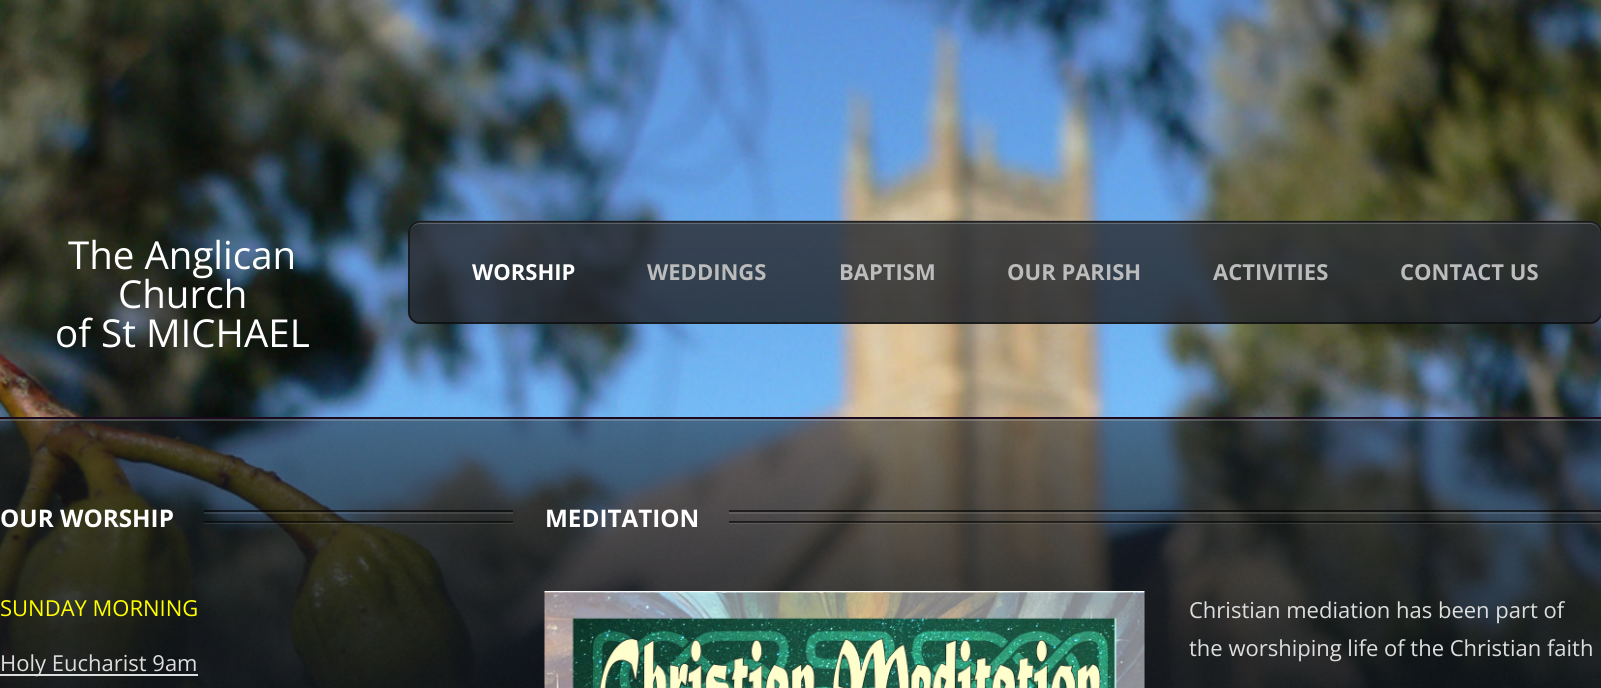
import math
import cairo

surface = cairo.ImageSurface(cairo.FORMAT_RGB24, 1601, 688)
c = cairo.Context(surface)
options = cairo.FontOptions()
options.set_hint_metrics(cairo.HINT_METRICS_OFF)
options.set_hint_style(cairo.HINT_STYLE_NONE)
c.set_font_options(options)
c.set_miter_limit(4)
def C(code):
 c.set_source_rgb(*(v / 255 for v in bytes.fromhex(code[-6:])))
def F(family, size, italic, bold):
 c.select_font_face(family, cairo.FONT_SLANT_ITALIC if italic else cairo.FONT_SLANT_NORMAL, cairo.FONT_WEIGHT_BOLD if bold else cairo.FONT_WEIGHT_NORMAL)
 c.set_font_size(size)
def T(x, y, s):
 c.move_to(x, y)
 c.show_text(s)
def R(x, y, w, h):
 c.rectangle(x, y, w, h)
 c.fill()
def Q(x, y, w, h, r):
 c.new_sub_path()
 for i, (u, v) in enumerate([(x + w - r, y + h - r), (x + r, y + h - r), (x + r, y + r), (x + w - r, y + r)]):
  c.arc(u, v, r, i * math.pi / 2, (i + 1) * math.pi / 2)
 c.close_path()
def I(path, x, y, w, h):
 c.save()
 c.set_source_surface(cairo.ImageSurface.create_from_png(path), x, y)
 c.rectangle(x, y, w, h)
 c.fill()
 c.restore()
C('ffffff')
c.paint()
I('1.png',0,0,1601,688)
C('1c071c')
R(0,417,1601,2)
F('Open Sans',38.5,0,0)
C('ffffff')
T(68,269,'The Anglican')
T(118,308,'Church')
T(55,347,'of St MICHAEL')
I('2.png',408,220,1193,104)
c.set_source_rgba(1,1,1,0.2)
c.new_path()
c.move_to(420,224)
c.line_to(1590,224)
c.curve_to(1596,224,1600,228,1600,234)
c.line_to(1600,314)
c.line_to(1599,318)
c.curve_to(1600,317,1601,314,1601,312)
c.line_to(1601,233)
c.curve_to(1601,227,1596,222,1590,222)
c.line_to(421,222)
c.curve_to(415,222,410,227,410,233)
c.line_to(410,234)
c.curve_to(410,228,414,224,420,224)
c.close_path()
c.fill()
Q(409,222,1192,101,11)
c.set_source_rgba(0,0,0,0.5)
c.stroke()
F('Open Sans',22,0,1)
C('ffffff')
T(472,280,'WORSHIP')
C('bcbcbc')
T(647,280,'WEDDINGS')
T(839,280,'BAPTISM')
T(1007,280,'OUR PARISH')
T(1213,280,'ACTIVITIES')
T(1400,280,'CONTACT US')
I('3.png',0,418,1601,270)
c.set_source_rgba(1,1,1,0.18)
R(0,419,1601,2)
F('Open Sans',24.25,0,1)
C('ffffff')
T(0,527,'OUR WORSHIP')
c.save()
c.rectangle(0,506,513,85)
c.clip()
c.set_source_rgba(1,1,1,0.1)
c.new_path()
c.move_to(204,522)
c.line_to(204,524)
c.line_to(716,524)
c.line_to(716,512)
c.line_to(716,522)
c.close_path()
c.fill()
c.restore()
c.set_source_rgba(1,1,1,0.1)
R(204,512,309,2)
c.set_source_rgba(0,0,0,0.6)
R(204,510,309,2)
R(204,521,309,2)
F('Open Sans',22,0,0)
C('ffff00')
T(0,616,'SUNDAY MORNING')
C('dddddd')
R(0,674,198,2)
T(0,671,'Holy Eucharist 9am')
F('Open Sans',24.25,0,1)
C('ffffff')
T(545,527,'MEDITATION')
c.set_source_rgba(1,1,1,0.1)
c.new_path()
c.move_to(729,522)
c.line_to(729,524)
c.line_to(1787,524)
c.line_to(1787,512)
c.line_to(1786,512)
c.line_to(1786,522)
c.close_path()
c.fill()
R(729,512,872,2)
c.set_source_rgba(0,0,0,0.6)
R(729,510,872,2)
R(729,521,872,2)
I('4.png',544,591,601,97)
F('Open Sans',22,0,0)
C('dddddd')
T(1189,618,'Christian mediation has been part of')
T(1189,656,'the worshiping life of the Christian faith')
surface.write_to_png('o.png')
